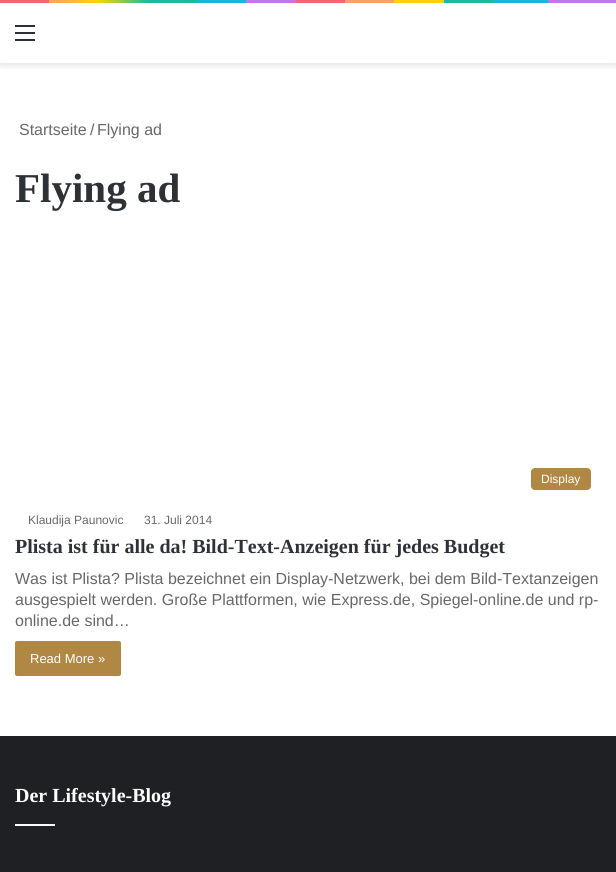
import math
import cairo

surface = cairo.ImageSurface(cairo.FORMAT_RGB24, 616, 872)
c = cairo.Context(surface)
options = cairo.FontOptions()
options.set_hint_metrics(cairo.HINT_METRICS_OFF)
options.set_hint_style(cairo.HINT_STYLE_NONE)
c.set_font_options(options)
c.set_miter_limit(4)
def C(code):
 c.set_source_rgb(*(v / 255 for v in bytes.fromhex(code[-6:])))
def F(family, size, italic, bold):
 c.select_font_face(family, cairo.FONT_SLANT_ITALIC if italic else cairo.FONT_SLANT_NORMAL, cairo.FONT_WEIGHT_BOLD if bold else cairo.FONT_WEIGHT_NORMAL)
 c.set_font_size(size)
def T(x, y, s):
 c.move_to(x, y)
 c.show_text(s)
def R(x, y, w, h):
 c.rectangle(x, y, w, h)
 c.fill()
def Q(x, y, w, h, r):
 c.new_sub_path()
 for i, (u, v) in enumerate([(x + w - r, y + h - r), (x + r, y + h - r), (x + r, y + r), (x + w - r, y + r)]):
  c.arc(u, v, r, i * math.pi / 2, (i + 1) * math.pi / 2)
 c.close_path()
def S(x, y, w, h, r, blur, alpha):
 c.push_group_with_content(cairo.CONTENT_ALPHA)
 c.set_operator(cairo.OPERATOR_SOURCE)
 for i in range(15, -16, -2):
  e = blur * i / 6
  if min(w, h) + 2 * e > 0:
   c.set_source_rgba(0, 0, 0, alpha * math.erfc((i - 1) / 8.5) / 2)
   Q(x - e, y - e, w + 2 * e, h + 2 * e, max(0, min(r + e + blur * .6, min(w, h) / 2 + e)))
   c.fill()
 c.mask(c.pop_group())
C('ffffff')
c.paint()
gradient = cairo.LinearGradient(0,1.5,616,1.5)
gradient.add_color_stop_rgba(0,0.969,0.396,0.439,1)
gradient.add_color_stop_rgba(.08,0.969,0.396,0.439,1)
gradient.add_color_stop_rgba(.08,0.953,0.643,0.42,1)
gradient.add_color_stop_rgba(.16,1,0.824,0.02,1)
gradient.add_color_stop_rgba(.24,0.106,0.737,0.608,1)
gradient.add_color_stop_rgba(.32,0.106,0.737,0.608,1)
gradient.add_color_stop_rgba(.32,0.078,0.725,0.835,1)
gradient.add_color_stop_rgba(.4,0.078,0.725,0.835,1)
gradient.add_color_stop_rgba(.4,0.765,0.467,0.894,1)
gradient.add_color_stop_rgba(.48,0.765,0.467,0.894,1)
gradient.add_color_stop_rgba(.48,0.969,0.396,0.439,1)
gradient.add_color_stop_rgba(.56,0.969,0.396,0.439,1)
gradient.add_color_stop_rgba(.56,0.953,0.643,0.42,1)
gradient.add_color_stop_rgba(.64,0.953,0.643,0.42,1)
gradient.add_color_stop_rgba(.64,1,0.824,0.02,1)
gradient.add_color_stop_rgba(.72,1,0.824,0.02,1)
gradient.add_color_stop_rgba(.72,0.106,0.737,0.608,1)
gradient.add_color_stop_rgba(.8,0.106,0.737,0.608,1)
gradient.add_color_stop_rgba(.8,0.078,0.725,0.835,1)
gradient.add_color_stop_rgba(.89,0.078,0.725,0.835,1)
gradient.add_color_stop_rgba(.89,0.765,0.467,0.894,1)
gradient.add_color_stop_rgba(1,0.765,0.467,0.894,1)
c.set_source(gradient)
R(0,0,616,3)
c.save()
c.rectangle(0,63,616,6)
c.clip()
C('000000')
S(0,6,616,60,0,3.5,.1)
c.restore()
C('2c2f34')
R(15,32,20,2)
R(15,25,20,2)
R(15,39,20,2)
F('Liberation Sans',16,0,0)
C('686868')
T(19,135,'Startseite')
T(90,135,'/')
T(97,135,'Flying ad')
F('Liberation Serif',41,0,1)
C('2e3136')
T(15,202,'Flying ad')
C('b08844')
Q(531,468,60,22,4)
c.fill()
F('Liberation Sans',12,0,0)
C('ffffff')
T(541,483,'Display')
C('686868')
T(28,524,'Klaudija Paunovic')
T(144,524,'31. Juli 2014')
F('Liberation Serif',20,0,1)
C('2e3136')
T(15,553,'Plista ist für alle da! Bild-Text-Anzeigen für jedes Budget')
F('Liberation Sans',16,0,0)
C('686868')
T(15,584,'Was ist Plista? Plista bezeichnet ein Display-Netzwerk, bei dem Bild-Textanzeigen')
T(15,605,'ausgespielt werden. Große Plattformen, wie Express.de, Spiegel-online.de und rp-')
T(15,626,'online.de sind…')
C('b08844')
Q(15,641,106,35,2)
c.fill()
F('Liberation Sans',13,0,0)
C('ffffff')
T(30,663,'Read More »')
C('1f2024')
R(0,736,616,136)
F('Liberation Serif',20,0,1)
C('ffffff')
T(15,802,'Der Lifestyle-Blog')
C('fdfdfd')
R(15,824,40,2)
surface.write_to_png('o.png')
